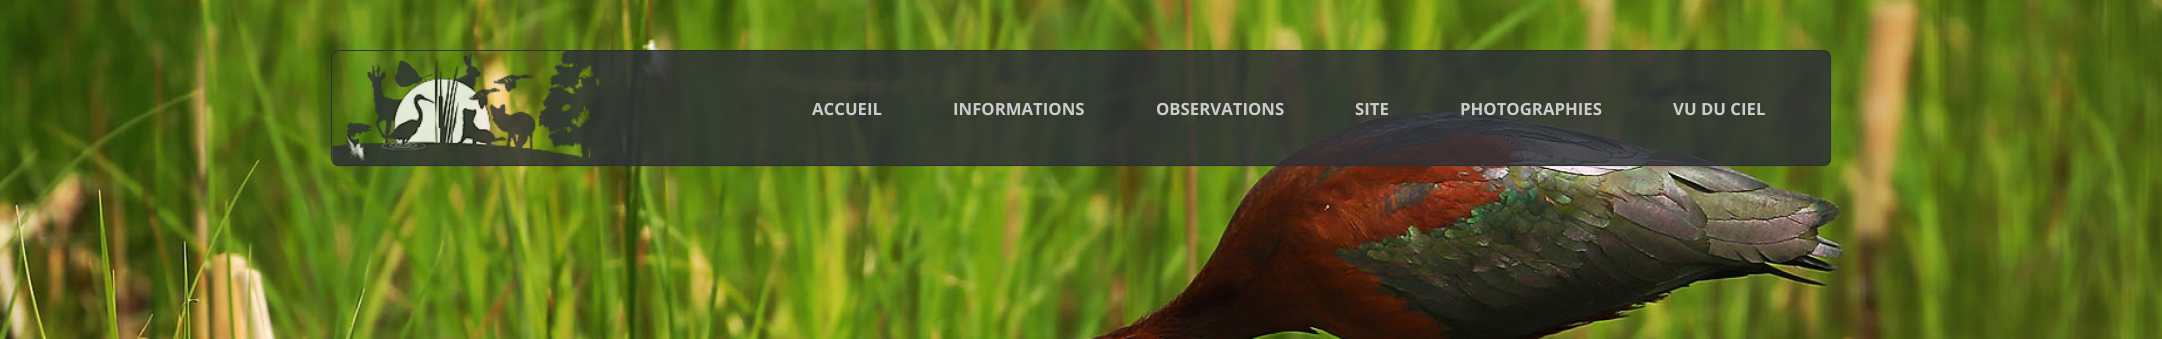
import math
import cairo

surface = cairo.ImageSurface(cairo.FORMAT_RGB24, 2162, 339)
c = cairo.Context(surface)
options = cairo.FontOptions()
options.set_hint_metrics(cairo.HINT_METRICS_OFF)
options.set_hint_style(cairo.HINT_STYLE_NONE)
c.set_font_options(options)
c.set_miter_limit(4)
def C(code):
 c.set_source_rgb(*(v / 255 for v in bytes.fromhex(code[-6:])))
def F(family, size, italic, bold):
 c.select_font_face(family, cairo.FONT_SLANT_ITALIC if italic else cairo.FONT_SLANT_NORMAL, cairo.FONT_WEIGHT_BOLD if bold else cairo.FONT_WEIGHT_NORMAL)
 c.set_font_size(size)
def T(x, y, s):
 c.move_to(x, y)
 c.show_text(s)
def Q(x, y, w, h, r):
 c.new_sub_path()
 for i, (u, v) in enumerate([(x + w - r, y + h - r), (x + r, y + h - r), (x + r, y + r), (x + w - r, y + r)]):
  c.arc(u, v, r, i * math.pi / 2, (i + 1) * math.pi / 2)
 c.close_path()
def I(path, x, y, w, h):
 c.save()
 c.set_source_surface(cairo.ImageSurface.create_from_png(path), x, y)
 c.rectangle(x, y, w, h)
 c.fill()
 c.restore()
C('ffffff')
c.paint()
I('1.png',0,0,2162,339)
I('2.png',332,50,1500,117)
Q(331.5,50.5,1499,115,7.5)
c.set_source_rgba(0.173,0.184,0.204,0.95)
c.set_line_width(1)
c.stroke()
F('Open Sans',16.75,0,1)
C('cccccc')
T(812,115,'ACCUEIL')
T(953,115,'INFORMATIONS')
T(1156,115,'OBSERVATIONS')
T(1355,115,'SITE')
T(1460,115,'PHOTOGRAPHIES')
T(1673,115,'VU DU CIEL')
surface.write_to_png('o.png')
